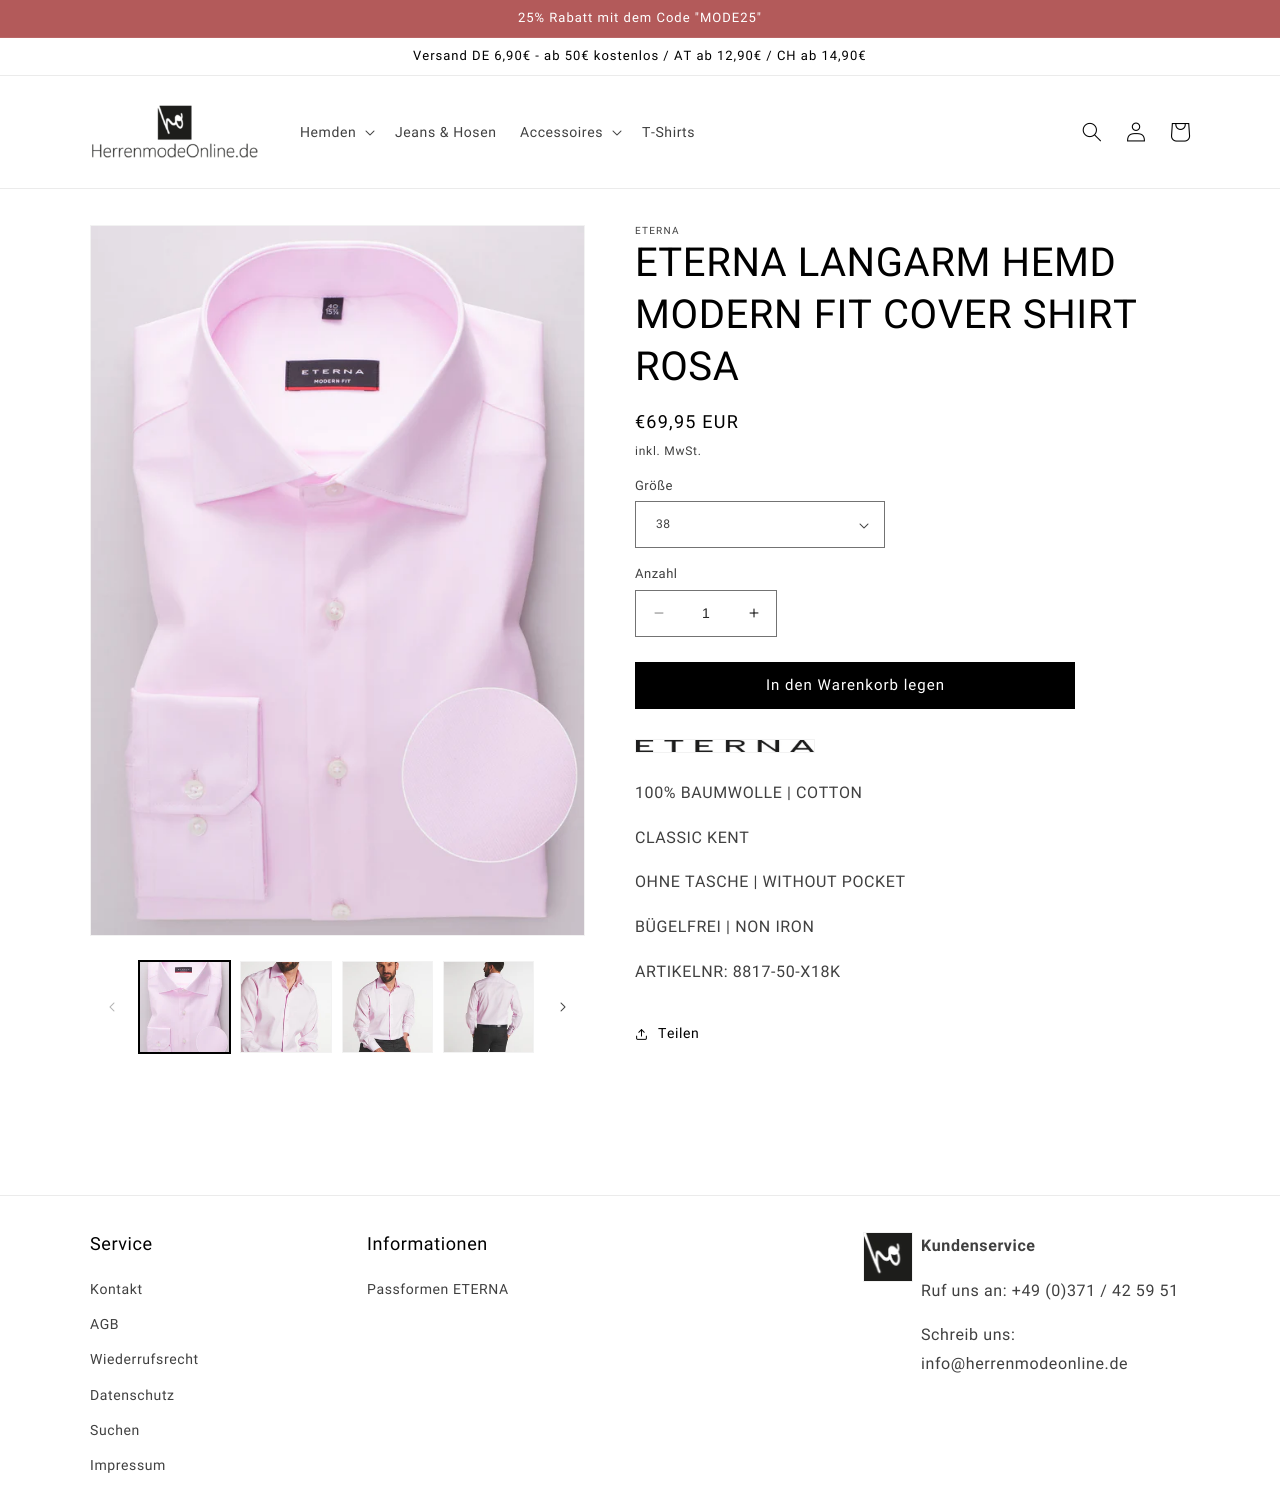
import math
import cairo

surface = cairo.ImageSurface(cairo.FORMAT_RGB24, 1280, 1501)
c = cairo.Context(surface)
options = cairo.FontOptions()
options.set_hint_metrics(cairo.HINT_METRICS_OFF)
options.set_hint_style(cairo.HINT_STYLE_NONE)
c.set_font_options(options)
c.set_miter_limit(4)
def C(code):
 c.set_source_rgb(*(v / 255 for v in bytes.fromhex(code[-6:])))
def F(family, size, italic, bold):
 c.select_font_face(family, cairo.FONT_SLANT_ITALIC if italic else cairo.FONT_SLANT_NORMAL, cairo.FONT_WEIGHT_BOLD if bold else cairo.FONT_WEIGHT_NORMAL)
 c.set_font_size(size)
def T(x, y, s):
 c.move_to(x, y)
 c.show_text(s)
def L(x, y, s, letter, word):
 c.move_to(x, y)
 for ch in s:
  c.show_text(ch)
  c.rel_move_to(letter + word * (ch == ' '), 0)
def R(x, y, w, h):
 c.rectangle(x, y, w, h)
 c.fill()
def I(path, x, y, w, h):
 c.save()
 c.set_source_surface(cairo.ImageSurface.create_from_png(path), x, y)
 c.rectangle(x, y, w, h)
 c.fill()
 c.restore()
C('ffffff')
c.paint()
C('b35a5a')
R(0,0,1280,37)
C('b96767')
R(0,37,1280,1)
F('Roboto',13,0,0)
C('ffffff')
L(518,22,'25% Rabatt mit dem Code "MODE25"',1,0)
C('ebebeb')
R(0,75,1280,1)
C('000000')
L(413,60,'Versand DE 6,90€ - ab 50€ kostenlos / AT ab 12,90€ / CH ab 14,90€',1,0)
C('ebebeb')
R(0,188,1280,1)
I('1.png',92,105,166,53)
F('Roboto',14,0,0)
C('404040')
L(300,137,'Hemden',.6,0)
I('2.png',365,130,10,6)
L(395,137,'Jeans & Hosen',.6,0)
L(520,137,'Accessoires',.6,0)
I('2.png',612,130,10,6)
L(642,137,'T-Shirts',.6,0)
I('3.png',1082,122,19,20)
I('4.png',1127,122,18,20)
I('5.png',1171,123,20,19)
c.rectangle(90.5,225.5,494,710)
C('f2f2f2')
c.set_line_width(1)
c.stroke()
I('6.png',91,226,493,709)
I('7.png',109,1002,6,10)
c.rectangle(138.5,960.5,92,93)
C('000000')
c.stroke()
c.rectangle(139.5,961.5,90,91)
c.stroke()
I('8.png',140,962,89,90)
c.rectangle(240.5,961.5,91,91)
C('f2f2f2')
c.stroke()
I('9.png',241,962,90,90)
c.rectangle(342.5,961.5,90,91)
c.stroke()
I('10.png',343,962,89,90)
c.rectangle(443.5,961.5,90,91)
c.stroke()
I('11.png',444,962,89,90)
I('12.png',560,1002,6,10)
F('Roboto',10,0,0)
C('404040')
L(635,234,'ETERNA',1.25,0)
F('Roboto',40,0,0)
C('000000')
L(635,276,'ETERNA LANGARM HEMD',.6,0)
L(635,328,'MODERN FIT COVER SHIRT',.6,0)
L(635,380,'ROSA',.6,0)
F('Roboto',18,0,0)
L(635,428,'€69,95 EUR',1.25,0)
F('Roboto',12,0,0)
C('404040')
L(635,455,'inkl. MwSt.',.75,0)
F('Roboto',13,0,0)
L(635,490,'Größe',.5,0)
I('2.png',859,523,10,6)
c.rectangle(635.5,501.5,249,46)
C('737373')
c.stroke()
F('Roboto',12,0,0)
C('404040')
L(656,528,'38',.5,0)
F('Roboto',13,0,0)
L(635,578,'Anzahl',.5,0)
I('13.png',654,612,10,2)
I('14.png',749,608,10,10)
c.rectangle(635.5,590.5,141,46)
C('737373')
c.stroke()
F('Liberation Sans',14,0,0)
C('262626')
T(702,618,'1')
C('000000')
R(635,662,440,47)
F('Roboto',15,0,0)
C('ffffff')
L(766,690,'In den Warenkorb legen',1,0)
c.rectangle(635.5,739.5,179,13)
C('f2f2f2')
c.stroke()
I('15.png',636,740,178,12)
F('Roboto',16,0,0)
C('404040')
L(635,798,'100% BAUMWOLLE | COTTON',.6,0)
L(635,843,'CLASSIC KENT',.6,0)
L(635,887,'OHNE TASCHE | WITHOUT POCKET',.6,0)
L(635,932,'BÜGELFREI | NON IRON',.6,0)
L(635,977,'ARTIKELNR: 8817-50-X18K',.6,0)
I('16.png',636,1029,11,11)
F('Roboto',14,0,0)
C('000000')
L(658,1038,'Teilen',.6,0)
C('ebebeb')
R(0,1195,1280,1)
F('Roboto',18,0,0)
C('000000')
L(90,1250,'Service',.6,0)
F('Roboto',14,0,0)
C('404040')
L(90,1294,'Kontakt',.6,0)
L(90,1329,'AGB',.6,0)
L(90,1364,'Wiederrufsrecht',.6,0)
L(90,1400,'Datenschutz',.6,0)
L(90,1435,'Suchen',.6,0)
L(90,1470,'Impressum',.6,0)
F('Roboto',18,0,0)
C('000000')
L(367,1250,'Informationen',.6,0)
F('Roboto',14,0,0)
C('404040')
L(367,1294,'Passformen ETERNA',.6,0)
c.rectangle(863.5,1232.5,49,49)
C('f2f2f2')
c.stroke()
I('17.png',864,1233,48,48)
F('Roboto',16,0,1)
C('404040')
L(921,1251,'Kundenservice',.6,0)
F('Roboto',16,0,0)
L(921,1296,'Ruf uns an: +49 (0)371 / 42 59 51',.6,0)
L(921,1340,'Schreib uns:',.6,0)
L(921,1369,'info@herrenmodeonline.de',.6,0)
surface.write_to_png('o.png')
